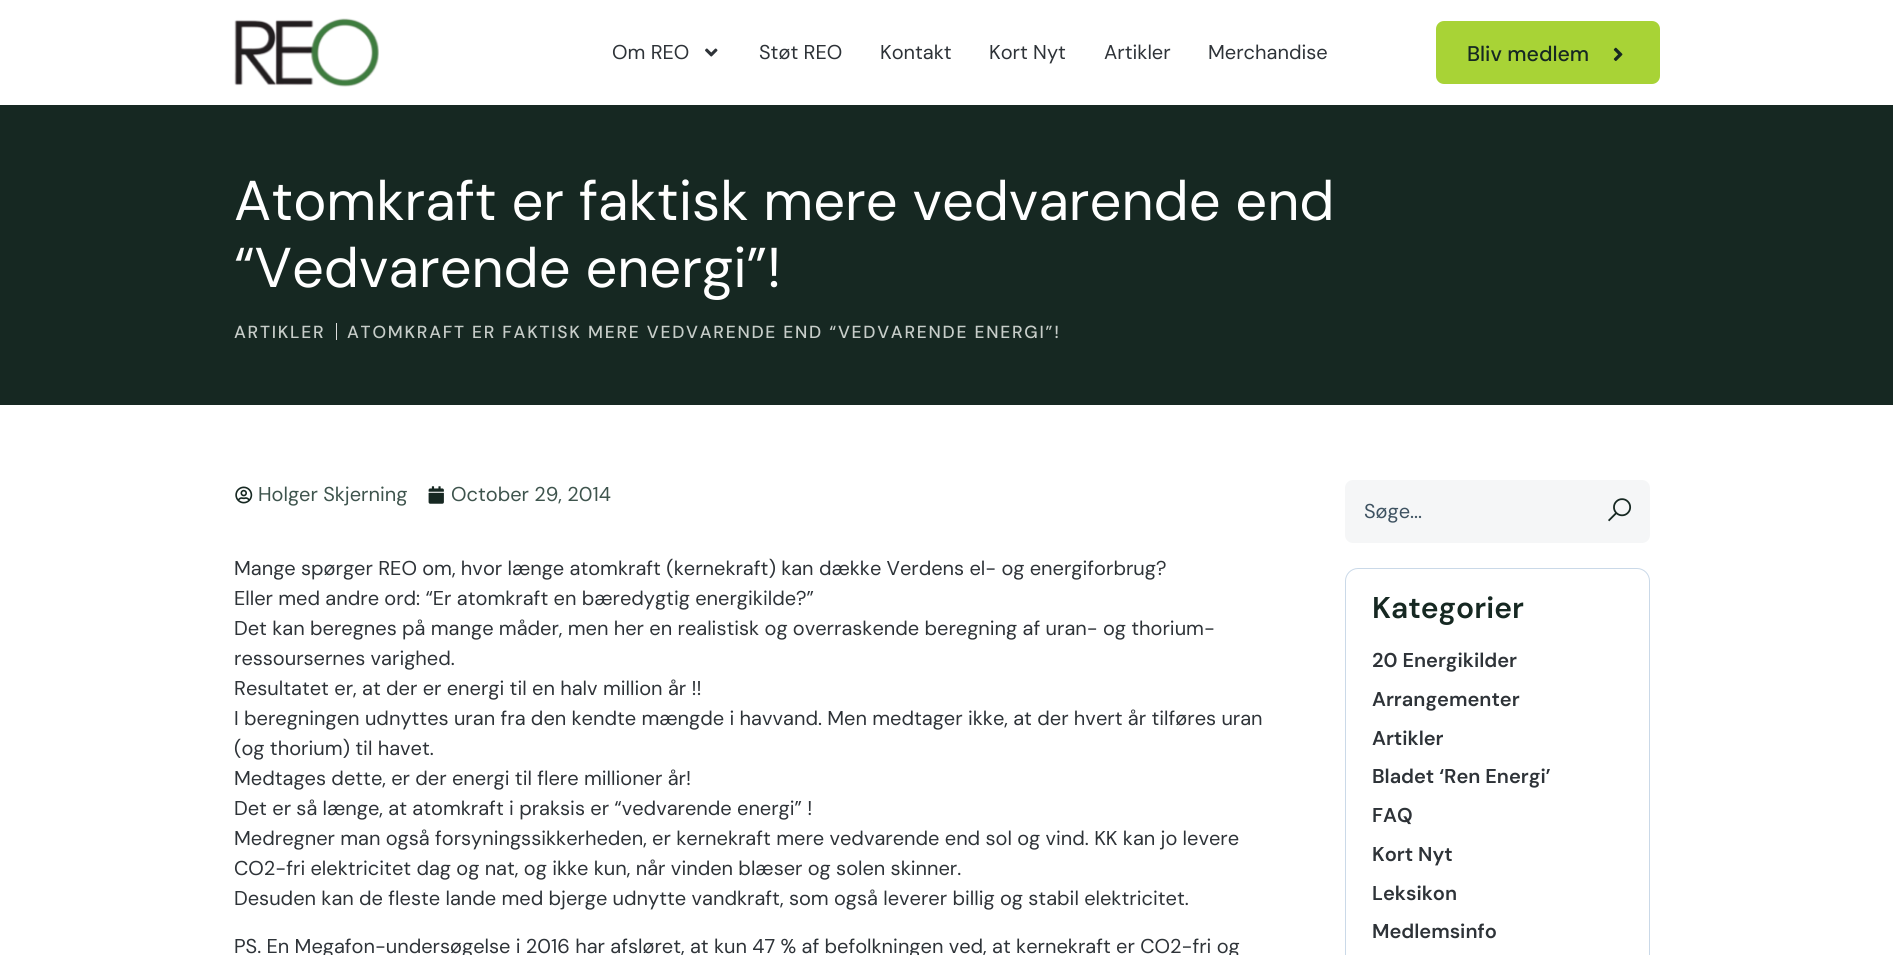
import math
import cairo

surface = cairo.ImageSurface(cairo.FORMAT_RGB24, 1893, 955)
c = cairo.Context(surface)
options = cairo.FontOptions()
options.set_hint_metrics(cairo.HINT_METRICS_OFF)
options.set_hint_style(cairo.HINT_STYLE_NONE)
c.set_font_options(options)
c.set_miter_limit(4)
def C(code):
 c.set_source_rgb(*(v / 255 for v in bytes.fromhex(code[-6:])))
def F(family, size, italic, bold):
 c.select_font_face(family, cairo.FONT_SLANT_ITALIC if italic else cairo.FONT_SLANT_NORMAL, cairo.FONT_WEIGHT_BOLD if bold else cairo.FONT_WEIGHT_NORMAL)
 c.set_font_size(size)
def T(x, y, s):
 c.move_to(x, y)
 c.show_text(s)
def L(x, y, s, letter, word):
 c.move_to(x, y)
 for ch in s:
  c.show_text(ch)
  c.rel_move_to(letter + word * (ch == ' '), 0)
def R(x, y, w, h):
 c.rectangle(x, y, w, h)
 c.fill()
def Q(x, y, w, h, r):
 c.new_sub_path()
 for i, (u, v) in enumerate([(x + w - r, y + h - r), (x + r, y + h - r), (x + r, y + r), (x + w - r, y + r)]):
  c.arc(u, v, r, i * math.pi / 2, (i + 1) * math.pi / 2)
 c.close_path()
def I(path, x, y, w, h):
 c.save()
 c.set_source_surface(cairo.ImageSurface.create_from_png(path), x, y)
 c.rectangle(x, y, w, h)
 c.fill()
 c.restore()
C('ffffff')
c.paint()
I('1.png',234,18,145,69)
F('DM Sans',20,0,0)
C('2e3338')
T(612,59,'Om REO')
I('2.png',705,48,13,9)
T(759,59,'Støt REO')
T(880,59,'Kontakt')
T(989,59,'Kort Nyt')
T(1104,59,'Artikler')
T(1208,59,'Merchandise')
C('a8d336')
Q(1436,21,224,63,8)
c.fill()
F('DM Sans Medium',21.25,0,0)
C('162822')
T(1467,61,'Bliv medlem')
I('3.png',1613,47,10,14)
R(0,105,1893,300)
F('DM Sans',56,0,0)
C('ffffff')
T(234,220,'Atomkraft er faktisk mere vedvarende end')
T(234,287,'“Vedvarende energi”!')
F('DM Sans Medium',17.5,0,0)
C('c7cdc9')
L(234,338,'ARTIKLER',1.75,0)
C('dddddd')
R(336,323,1,17)
C('c7cdc9')
L(347,338,'ATOMKRAFT ER FAKTISK MERE VEDVARENDE END “VEDVARENDE ENERGI”!',1.75,0)
I('4.png',235,486,18,18)
F('DM Sans',20,0,0)
C('3e544d')
T(258,501,'Holger Skjerning')
I('5.png',428,486,16,18)
T(451,501,'October 29, 2014')
C('2e3338')
T(234,575,'Mange spørger REO om, hvor længe atomkraft (kernekraft) kan dække Verdens el- og energiforbrug?')
T(234,605,'Eller med andre ord: “Er atomkraft en bæredygtig energikilde?”')
T(234,635,'Det kan beregnes på mange måder, men her en realistisk og overraskende beregning af uran- og thorium-')
T(234,665,'ressoursernes varighed.')
T(234,695,'Resultatet er, at der er energi til en halv million år !!')
T(234,725,'I beregningen udnyttes uran fra den kendte mængde i havvand. Men medtager ikke, at der hvert år tilføres uran')
T(234,755,'(og thorium) til havet.')
T(234,785,'Medtages dette, er der energi til flere millioner år!')
T(234,815,'Det er så længe, at atomkraft i praksis er “vedvarende energi” !')
T(234,845,'Medregner man også forsyningssikkerheden, er kernekraft mere vedvarende end sol og vind. KK kan jo levere')
T(234,875,'CO2-fri elektricitet dag og nat, og ikke kun, når vinden blæser og solen skinner.')
T(234,905,'Desuden kan de fleste lande med bjerge udnytte vandkraft, som også leverer billig og stabil elektricitet.')
T(234,953,'PS. En Megafon-undersøgelse i 2016 har afsløret, at kun 47 % af befolkningen ved, at kernekraft er CO2-fri og')
C('f5f6f7')
Q(1345,480,305,63,8)
c.fill()
C('3e5261')
T(1364,518,'Søge...')
I('6.png',1608,498,24,24)
Q(1345.5,568.5,304,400,12.5)
C('cad9e8')
c.set_line_width(1)
c.stroke()
F('DM Sans SemiBold',30,0,0)
C('162822')
T(1372,618,'Kategorier')
F('DM Sans SemiBold',20,0,0)
C('2e3338')
T(1372,667,'20 Energikilder')
T(1372,706,'Arrangementer')
T(1372,745,'Artikler')
T(1372,783,'Bladet ‘Ren Energi’')
T(1372,822,'FAQ')
T(1372,861,'Kort Nyt')
T(1372,900,'Leksikon')
T(1372,938,'Medlemsinfo')
surface.write_to_png('o.png')
